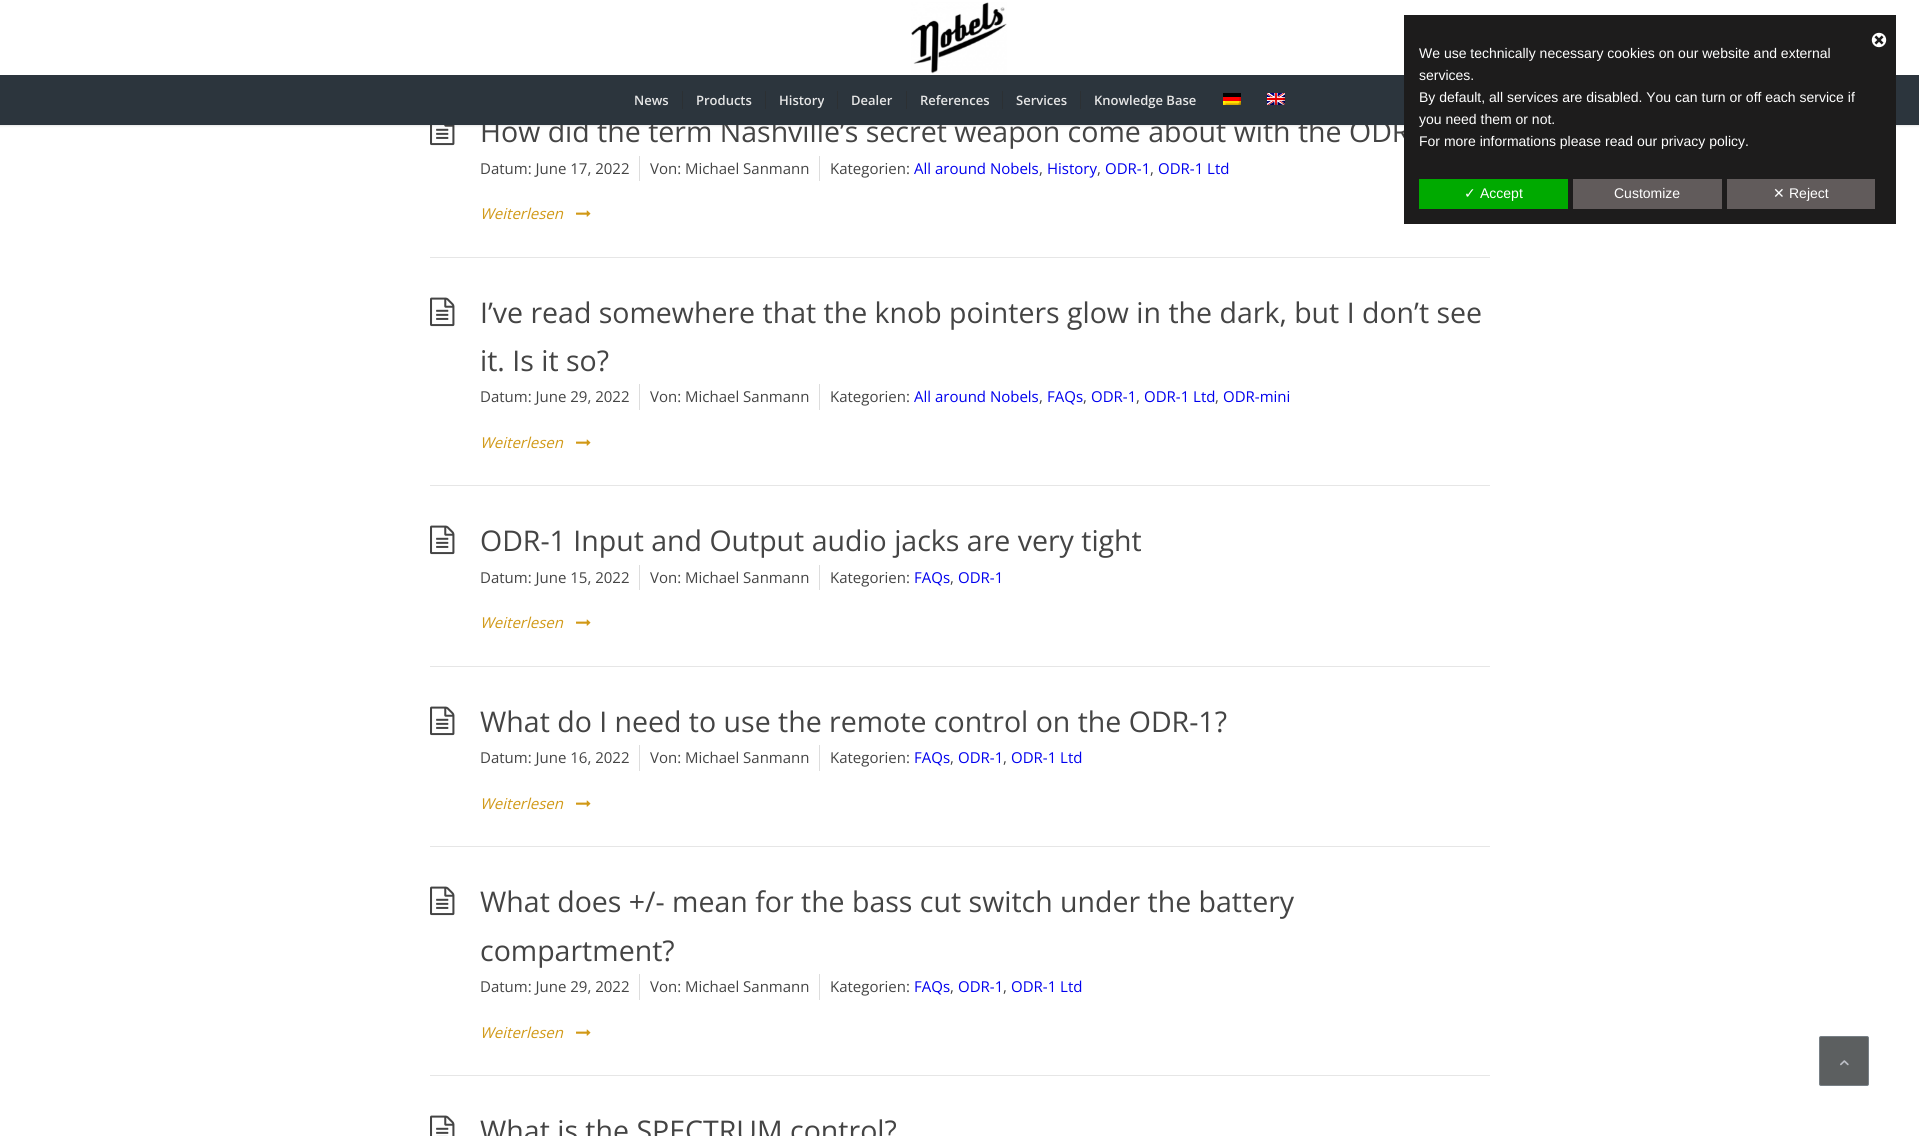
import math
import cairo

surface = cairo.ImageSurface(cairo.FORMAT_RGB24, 1919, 1136)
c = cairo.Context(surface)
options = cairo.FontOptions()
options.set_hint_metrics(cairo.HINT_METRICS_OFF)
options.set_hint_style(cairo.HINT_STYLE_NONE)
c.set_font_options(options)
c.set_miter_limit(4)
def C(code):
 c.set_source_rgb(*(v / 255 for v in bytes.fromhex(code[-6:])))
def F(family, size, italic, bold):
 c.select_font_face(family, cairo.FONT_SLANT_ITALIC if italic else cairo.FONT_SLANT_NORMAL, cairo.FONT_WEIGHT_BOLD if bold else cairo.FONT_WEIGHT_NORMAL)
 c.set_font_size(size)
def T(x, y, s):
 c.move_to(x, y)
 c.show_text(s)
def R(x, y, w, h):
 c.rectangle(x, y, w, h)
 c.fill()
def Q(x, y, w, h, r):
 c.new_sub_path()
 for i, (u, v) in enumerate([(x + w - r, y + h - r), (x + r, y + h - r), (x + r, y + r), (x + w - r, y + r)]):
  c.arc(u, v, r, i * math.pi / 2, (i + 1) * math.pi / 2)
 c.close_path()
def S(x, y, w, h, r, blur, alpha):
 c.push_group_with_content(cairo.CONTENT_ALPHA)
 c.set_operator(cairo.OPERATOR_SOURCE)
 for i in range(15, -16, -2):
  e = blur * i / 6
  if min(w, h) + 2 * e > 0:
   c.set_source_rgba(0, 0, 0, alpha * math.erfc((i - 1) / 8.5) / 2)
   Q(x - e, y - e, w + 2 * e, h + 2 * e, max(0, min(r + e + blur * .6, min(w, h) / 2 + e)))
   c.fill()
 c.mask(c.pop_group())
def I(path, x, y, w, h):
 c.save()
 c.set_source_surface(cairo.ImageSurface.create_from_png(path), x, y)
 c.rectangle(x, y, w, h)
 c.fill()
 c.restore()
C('ffffff')
c.paint()
I('4.png',430,125,25,21)
C('000000')
S(-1,-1,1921,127,0,1,.1)
C('ffffff')
R(0,0,1919,75)
I('1.png',911,2,96,72)
F('Open Sans',28.5,0,0)
C('444444')
T(480,142,'How did the term Nashville’s secret weapon come about with the ODR')
C('2c353d')
R(0,75,1919,50)
F('Open Sans SemiBold',13,0,0)
C('e6e6e6')
T(634,105,'News')
T(696,105,'Products')
C('2c3033')
R(682,91,1,18)
C('e6e6e6')
T(779,105,'History')
C('2c3033')
R(765,91,1,18)
C('e6e6e6')
T(851,105,'Dealer')
C('2c3033')
R(837,91,1,18)
C('e6e6e6')
T(920,105,'References')
C('2c3033')
R(906,91,1,18)
C('e6e6e6')
T(1016,105,'Services')
C('2c3033')
R(1002,91,1,18)
C('e6e6e6')
T(1094,105,'Knowledge Base')
C('2c3033')
R(1080,91,1,18)
I('2.png',1223,93,18,12)
I('3.png',1267,93,18,12)
C('e6e6e6')
R(430,257,1060,1)
C('dddddd')
R(639,156,1,25)
F('Open Sans',15,0,0)
C('444444')
T(480,174,'Datum: June 17, 2022')
C('dddddd')
R(819,156,1,25)
C('444444')
T(650,174,'Von: Michael Sanmann')
T(830,174,'Kategorien:')
C('0000ee')
T(914,174,'All around Nobels')
C('444444')
T(1039,174,',')
C('0000ee')
T(1047,174,'History')
C('444444')
T(1097,174,',')
C('0000ee')
T(1105,174,'ODR-1')
C('444444')
T(1150,174,',')
C('0000ee')
T(1158,174,'ODR-1 Ltd')
F('Open Sans',15,1,0)
C('d19917')
T(480,219,'Weiterlesen')
I('5.png',576,210,15,7)
C('e6e6e6')
R(430,485,1060,1)
I('6.png',430,297,25,30)
F('Open Sans',28.5,0,0)
C('444444')
T(480,323,'I’ve read somewhere that the knob pointers glow in the dark, but I don’t see')
T(480,371,'it. Is it so?')
C('dddddd')
R(639,384,1,26)
F('Open Sans',15,0,0)
C('444444')
T(480,402,'Datum: June 29, 2022')
C('dddddd')
R(819,384,1,26)
C('444444')
T(650,402,'Von: Michael Sanmann')
T(830,402,'Kategorien:')
C('0000ee')
T(914,402,'All around Nobels')
C('444444')
T(1039,402,',')
C('0000ee')
T(1047,402,'FAQs')
C('444444')
T(1083,402,',')
C('0000ee')
T(1091,402,'ODR-1')
C('444444')
T(1136,402,',')
C('0000ee')
T(1144,402,'ODR-1 Ltd')
C('444444')
T(1215,402,',')
C('0000ee')
T(1223,402,'ODR-mini')
F('Open Sans',15,1,0)
C('d19917')
T(480,448,'Weiterlesen')
I('5.png',576,439,15,7)
C('e6e6e6')
R(430,666,1060,1)
I('6.png',430,525,25,30)
F('Open Sans',28.5,0,0)
C('444444')
T(480,551,'ODR-1 Input and Output audio jacks are very tight')
C('dddddd')
R(639,565,1,25)
F('Open Sans',15,0,0)
C('444444')
T(480,583,'Datum: June 15, 2022')
C('dddddd')
R(819,565,1,25)
C('444444')
T(650,583,'Von: Michael Sanmann')
T(830,583,'Kategorien:')
C('0000ee')
T(914,583,'FAQs')
C('444444')
T(950,583,',')
C('0000ee')
T(958,583,'ODR-1')
F('Open Sans',15,1,0)
C('d19917')
T(480,628,'Weiterlesen')
I('5.png',576,619,15,7)
C('e6e6e6')
R(430,846,1060,1)
I('6.png',430,706,25,30)
F('Open Sans',28.5,0,0)
C('444444')
T(480,732,'What do I need to use the remote control on the ODR-1?')
C('dddddd')
R(639,745,1,26)
F('Open Sans',15,0,0)
C('444444')
T(480,763,'Datum: June 16, 2022')
C('dddddd')
R(819,745,1,26)
C('444444')
T(650,763,'Von: Michael Sanmann')
T(830,763,'Kategorien:')
C('0000ee')
T(914,763,'FAQs')
C('444444')
T(950,763,',')
C('0000ee')
T(958,763,'ODR-1')
C('444444')
T(1003,763,',')
C('0000ee')
T(1011,763,'ODR-1 Ltd')
F('Open Sans',15,1,0)
C('d19917')
T(480,809,'Weiterlesen')
I('5.png',576,800,15,7)
C('e6e6e6')
R(430,1075,1060,1)
I('6.png',430,886,25,30)
F('Open Sans',28.5,0,0)
C('444444')
T(480,912,'What does +/- mean for the bass cut switch under the battery')
T(480,961,'compartment?')
C('dddddd')
R(639,974,1,26)
F('Open Sans',15,0,0)
C('444444')
T(480,992,'Datum: June 29, 2022')
C('dddddd')
R(819,974,1,26)
C('444444')
T(650,992,'Von: Michael Sanmann')
T(830,992,'Kategorien:')
C('0000ee')
T(914,992,'FAQs')
C('444444')
T(950,992,',')
C('0000ee')
T(958,992,'ODR-1')
C('444444')
T(1003,992,',')
C('0000ee')
T(1011,992,'ODR-1 Ltd')
F('Open Sans',15,1,0)
C('d19917')
T(480,1038,'Weiterlesen')
I('5.png',576,1029,15,7)
I('7.png',430,1115,25,21)
F('Open Sans',28.5,0,0)
C('444444')
T(480,1141,'What is the SPECTRUM control?')
C('1d1c1c')
R(1404,15,492,209)
I('8.png',1871,32,16,16)
F('Liberation Sans',14,0,0)
C('ffffff')
T(1419,58,'We use technically necessary cookies on our website and external')
T(1419,80,'services.')
T(1419,102,'By default, all services are disabled. You can turn or off each service if')
T(1419,124,'you need them or not.')
T(1419,146,'For more informations please read our privacy policy.')
C('00aa00')
R(1419,179,149,30)
F('DejaVu Sans',14,0,0)
C('ffffff')
T(1464,198,'✓')
F('Liberation Sans',14,0,0)
T(1480,198,'Accept')
C('615b5b')
R(1573,179,149,30)
C('ffffff')
T(1614,198,'Customize')
C('615b5b')
R(1727,179,148,30)
F('DejaVu Sans',14,0,0)
C('ffffff')
T(1773,198,'✕')
F('Liberation Sans',14,0,0)
T(1789,198,'Reject')
C('5c5f60')
Q(1819.5,1036.5,49,49,1.5)
c.fill_preserve()
C('788086')
c.set_line_width(1)
c.stroke()
I('9.png',1840,1060,9,6)
surface.write_to_png('o.png')
